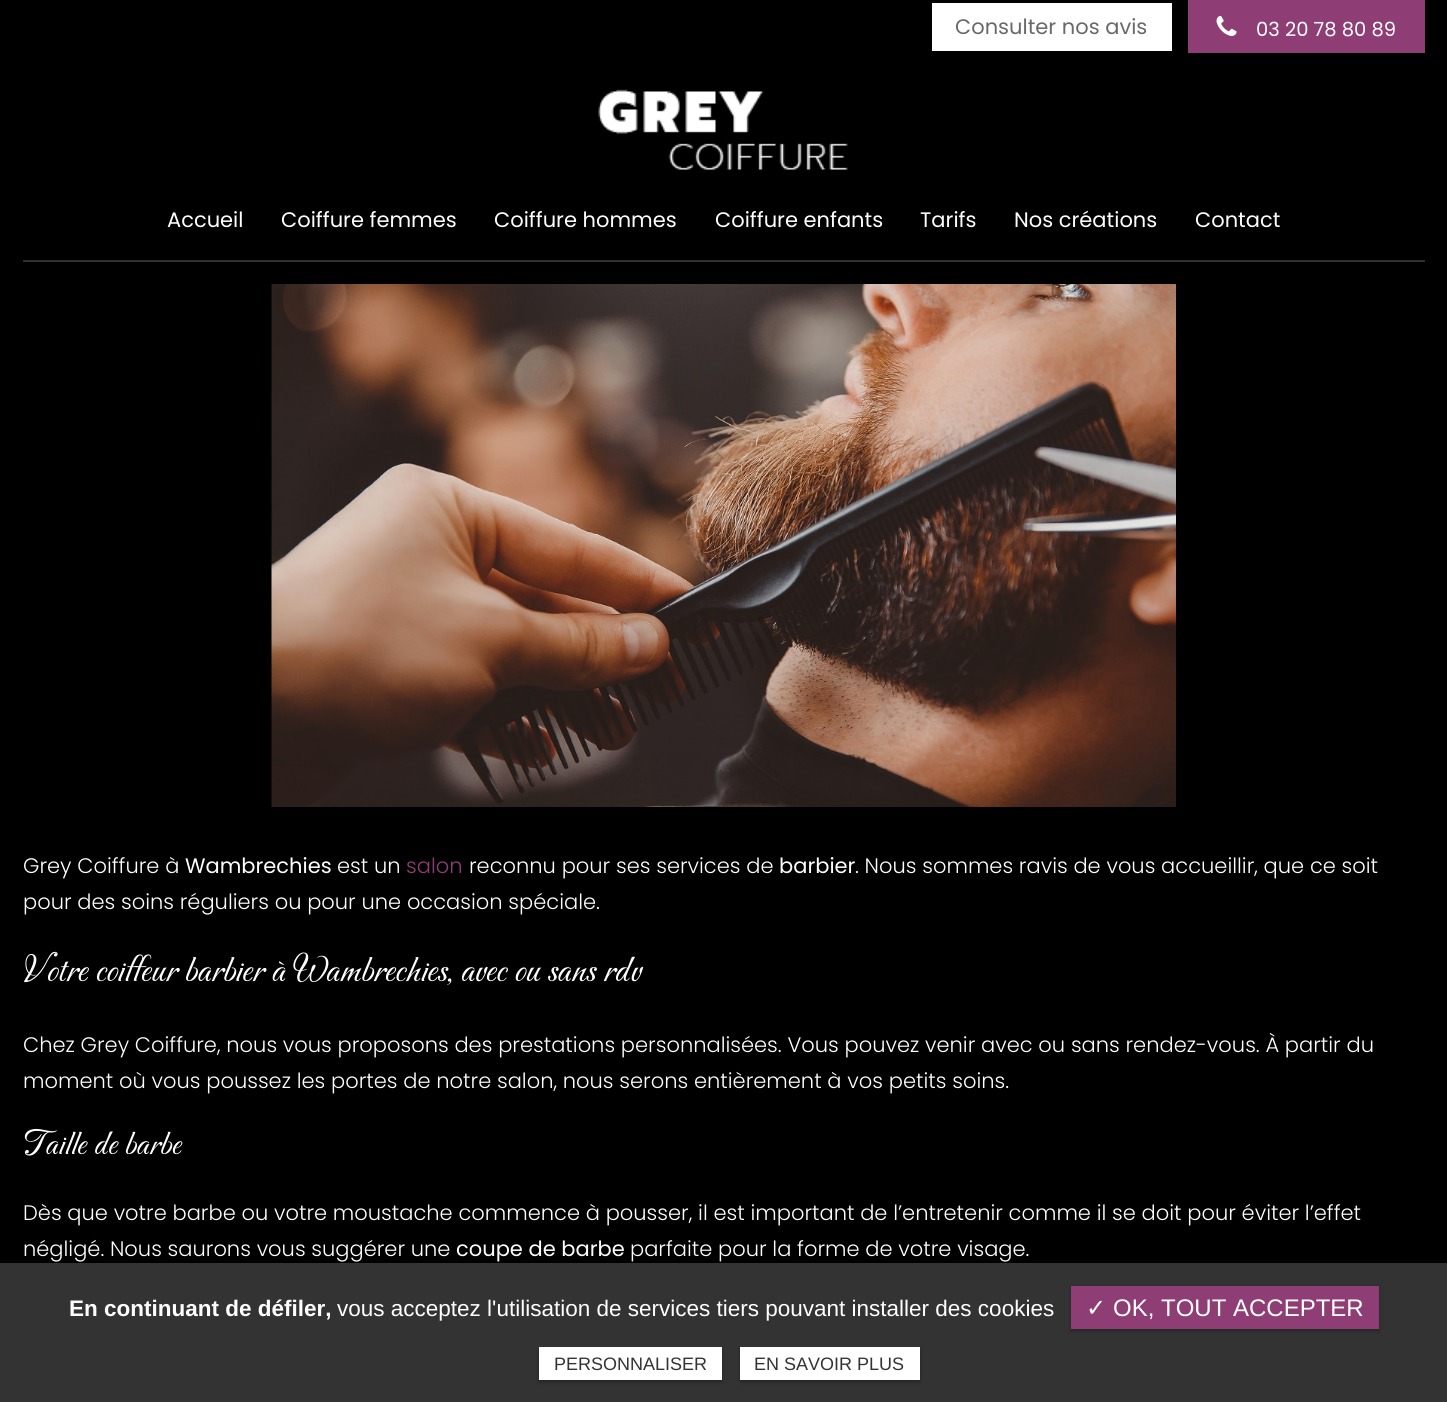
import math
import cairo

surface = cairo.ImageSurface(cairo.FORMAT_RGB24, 1447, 1402)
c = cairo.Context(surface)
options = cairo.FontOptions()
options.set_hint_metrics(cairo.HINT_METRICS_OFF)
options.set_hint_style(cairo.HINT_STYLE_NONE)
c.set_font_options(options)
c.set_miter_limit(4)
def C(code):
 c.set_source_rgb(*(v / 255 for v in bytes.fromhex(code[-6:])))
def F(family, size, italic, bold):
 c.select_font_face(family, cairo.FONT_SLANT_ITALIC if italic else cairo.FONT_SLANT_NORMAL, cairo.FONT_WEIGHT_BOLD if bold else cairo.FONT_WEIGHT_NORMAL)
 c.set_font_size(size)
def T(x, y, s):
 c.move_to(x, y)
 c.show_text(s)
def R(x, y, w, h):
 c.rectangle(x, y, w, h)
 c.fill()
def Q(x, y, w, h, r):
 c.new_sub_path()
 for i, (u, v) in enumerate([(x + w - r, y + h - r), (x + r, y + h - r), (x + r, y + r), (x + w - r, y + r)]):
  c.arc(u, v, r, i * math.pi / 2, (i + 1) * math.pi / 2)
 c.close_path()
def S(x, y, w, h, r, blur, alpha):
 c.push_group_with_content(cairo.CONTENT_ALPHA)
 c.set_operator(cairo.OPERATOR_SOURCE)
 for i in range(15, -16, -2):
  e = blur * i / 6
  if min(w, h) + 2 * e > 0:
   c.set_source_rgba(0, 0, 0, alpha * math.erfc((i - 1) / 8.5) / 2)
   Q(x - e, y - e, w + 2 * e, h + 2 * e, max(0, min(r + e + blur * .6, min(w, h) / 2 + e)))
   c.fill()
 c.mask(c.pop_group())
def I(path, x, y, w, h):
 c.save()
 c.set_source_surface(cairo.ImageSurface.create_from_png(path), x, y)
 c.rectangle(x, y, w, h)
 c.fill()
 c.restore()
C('000000')
c.paint()
C('ffffff')
R(932,3,240,48)
F('Poppins',21,0,0)
C('6a6969')
T(955,34,'Consulter nos avis')
C('8f3d75')
R(1188,0,237,53)
I('1.png',1216,16,21,20)
F('Poppins',19.5,0,0)
C('ffffff')
T(1256,36,'03 20 78 80 89')
C('303030')
R(23,260,1402,2)
I('2.png',598,89,250,81)
F('Poppins',21,0,0)
C('ffffff')
T(167,227,'Accueil')
T(281,227,'Coiffure femmes')
T(494,227,'Coiffure hommes')
T(715,227,'Coiffure enfants')
T(920,227,'Tarifs')
T(1014,227,'Nos créations')
T(1195,227,'Contact')
I('3.png',271,284,905,523)
F('Poppins Light',21,0,0)
T(23,873,'Grey Coiffure à')
F('Poppins',21,0,0)
T(185,873,'Wambrechies')
F('Poppins Light',21,0,0)
T(337,873,'est un')
C('8f3d75')
T(406,873,'salon')
C('ffffff')
T(469,873,'reconnu pour ses services de')
F('Poppins',21,0,0)
T(779,873,'barbier')
F('Poppins Light',21,0,0)
T(855,873,'. Nous sommes ravis de vous accueillir, que ce soit')
T(23,909,'pour des soins réguliers ou pour une occasion spéciale.')
F('Carattere',38.8,0,0)
T(23,981,'Votre coiffeur barbier à Wambrechies, avec ou sans rdv')
F('Poppins Light',21,0,0)
T(23,1052,'Chez Grey Coiffure, nous vous proposons des prestations personnalisées. Vous pouvez venir avec ou sans rendez-vous. À partir du')
T(23,1088,'moment où vous poussez les portes de notre salon, nous serons entièrement à vos petits soins.')
F('Carattere',36,0,0)
T(23,1154,'Taille de barbe')
F('Poppins Light',21,0,0)
T(23,1220,'Dès que votre barbe ou votre moustache commence à pousser, il est important de l’entretenir comme il se doit pour éviter l’effet')
T(23,1256,'négligé. Nous saurons vous suggérer une')
F('Poppins',21,0,0)
T(456,1256,'coupe de barbe')
F('Poppins Light',21,0,0)
T(630,1256,'parfaite pour la forme de votre visage.')
C('333333')
R(0,1263,1447,139)
F('Liberation Sans',22.5,0,1)
C('ffffff')
T(69,1316,'En continuant de défiler,')
F('Liberation Sans',22.5,0,0)
T(337,1316,'vous acceptez l\'utilisation de services tiers pouvant installer des cookies')
C('000000')
S(1071,1287,308,44,0,2,.3)
C('8f3d75')
R(1071,1286,308,43)
F('DejaVu Sans',24,0,0)
C('ffffff')
T(1086,1316,'✓')
F('Liberation Sans',24,0,0)
T(1113,1316,'OK, TOUT ACCEPTER')
C('000000')
S(539,1349,183,33,0,2,.3)
C('ffffff')
R(539,1347,183,33)
F('Liberation Sans',18,0,0)
C('333333')
T(554,1370,'PERSONNALISER')
C('000000')
S(740,1349,180,33,0,2,.3)
C('ffffff')
R(740,1347,180,33)
C('333333')
T(754,1370,'EN SAVOIR PLUS')
surface.write_to_png('o.png')
